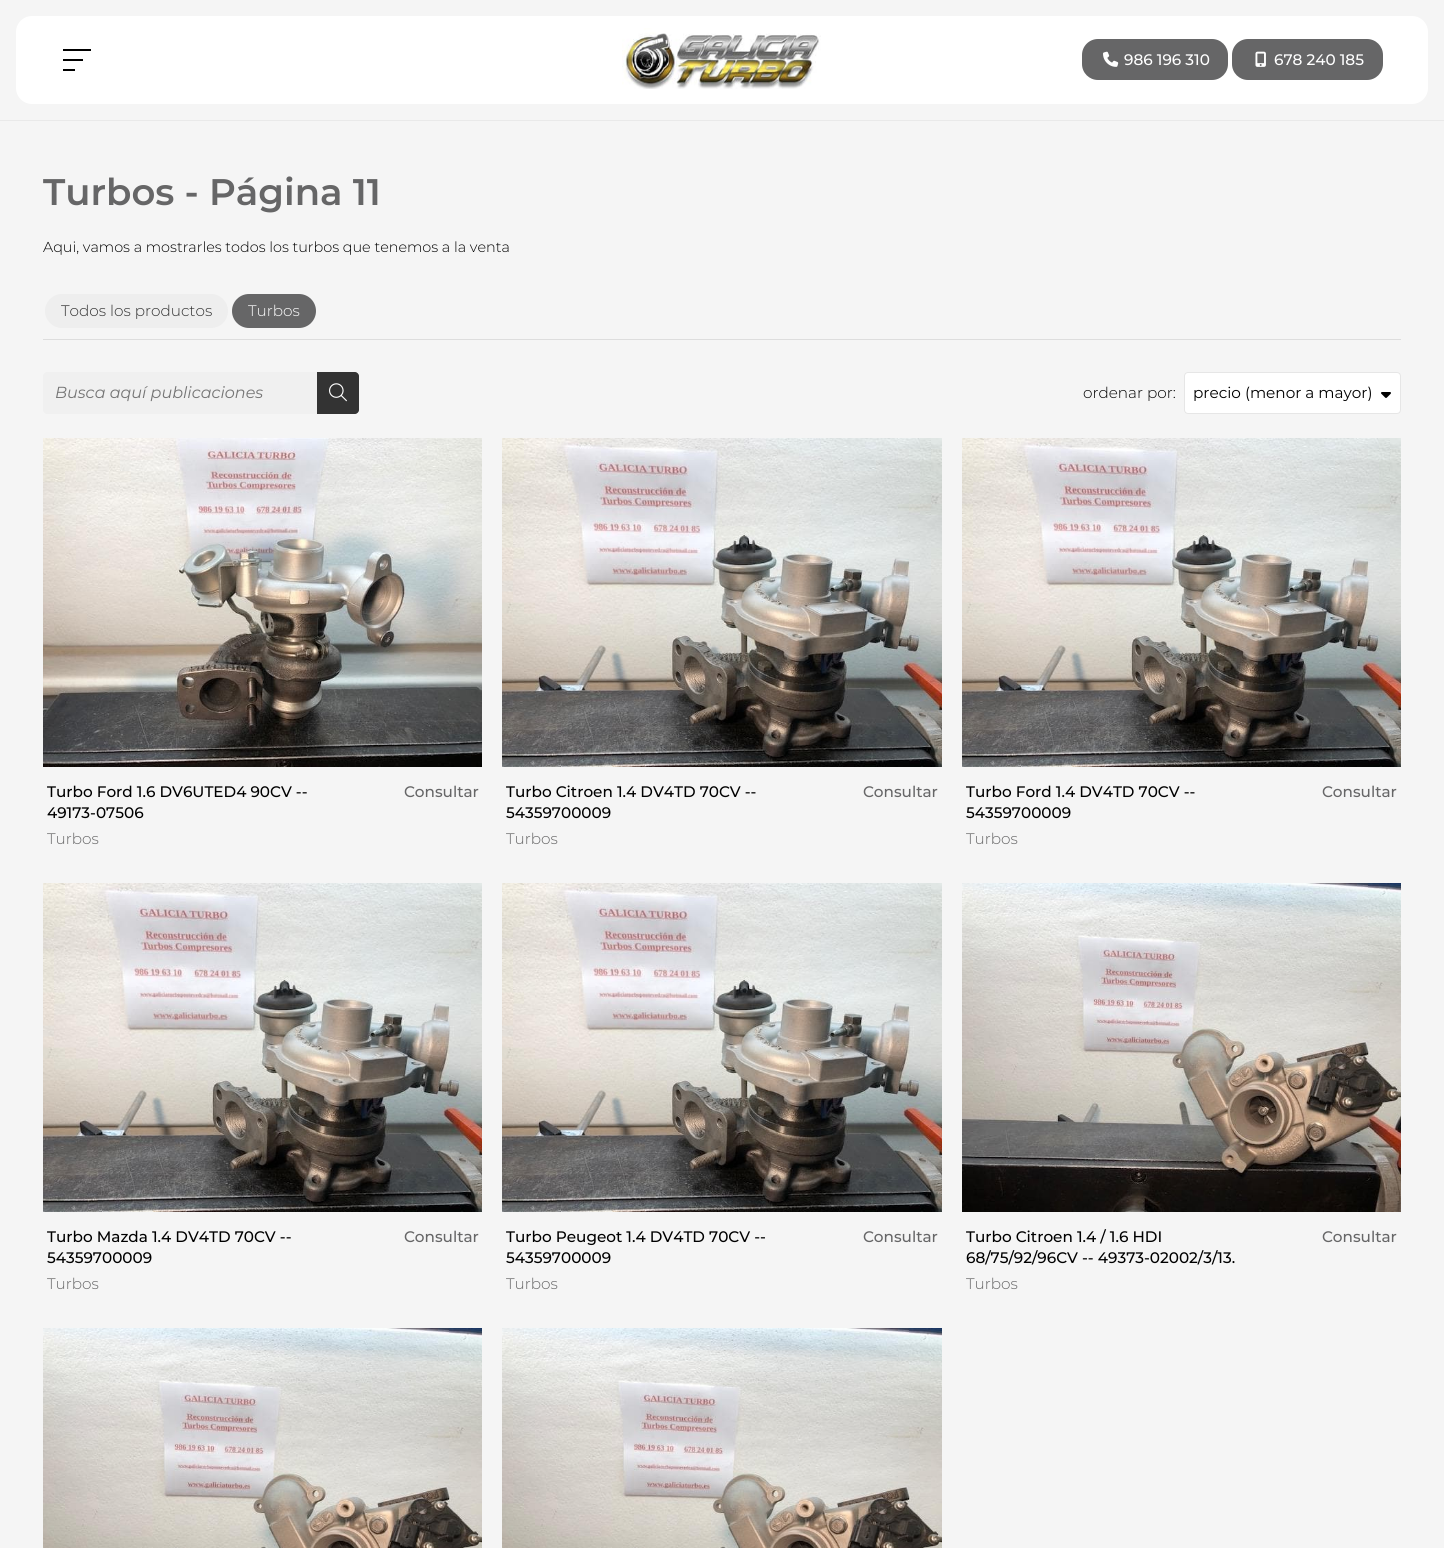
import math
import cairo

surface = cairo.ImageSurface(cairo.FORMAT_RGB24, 1444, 1548)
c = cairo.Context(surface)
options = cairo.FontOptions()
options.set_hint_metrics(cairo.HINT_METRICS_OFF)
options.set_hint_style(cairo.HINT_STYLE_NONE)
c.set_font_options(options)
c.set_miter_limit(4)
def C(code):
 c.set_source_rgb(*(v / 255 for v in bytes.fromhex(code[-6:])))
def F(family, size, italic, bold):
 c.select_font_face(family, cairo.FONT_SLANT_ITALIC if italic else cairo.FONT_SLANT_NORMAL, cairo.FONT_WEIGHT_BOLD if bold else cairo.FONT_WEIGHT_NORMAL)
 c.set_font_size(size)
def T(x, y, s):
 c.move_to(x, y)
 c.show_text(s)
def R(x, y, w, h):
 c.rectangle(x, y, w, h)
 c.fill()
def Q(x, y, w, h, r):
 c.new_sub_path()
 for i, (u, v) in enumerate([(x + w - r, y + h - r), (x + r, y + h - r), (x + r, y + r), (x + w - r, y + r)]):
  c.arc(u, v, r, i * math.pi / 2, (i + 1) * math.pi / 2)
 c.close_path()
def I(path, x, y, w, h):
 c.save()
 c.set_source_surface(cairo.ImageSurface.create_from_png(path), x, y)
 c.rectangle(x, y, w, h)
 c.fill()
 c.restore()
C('f5f5f5')
c.paint()
C('ffffff')
Q(16,16,1412,88,16)
c.fill()
C('000000')
R(63,49,28,2)
R(63,59,20,2)
R(63,69,12,2)
I('1.png',622,28,199,61)
C('666667')
Q(1082,39,146,41,16)
c.fill()
I('2.png',1103,51,16,16)
F('Montserrat Medium',15.25,0,0)
C('ffffff')
T(1124,65,'986 196 310')
C('666667')
Q(1232,39,151,41,16)
c.fill()
I('3.png',1255,51,11,16)
C('ffffff')
T(1274,65,'678 240 185')
C('e9e9e9')
R(0,120,1444,1)
F('Montserrat SemiBold',37,0,0)
C('666667')
T(43,205,'Turbos - Página 11')
F('Montserrat Light',14.4,0,0)
C('000000')
T(43,252,'Aqui, vamos a mostrarles todos los turbos que tenemos a la venta')
C('dddddd')
R(43,339,1358,1)
C('eeeeee')
Q(45,294,183,34,17)
c.fill()
F('Montserrat Light',15.25,0,0)
C('333333')
T(61,316,'Todos los productos')
C('666667')
Q(232,294,84,34,17)
c.fill()
C('ffffff')
T(248,316,'Turbos')
C('f0f0f0')
c.new_path()
c.move_to(47,372)
c.line_to(317,372)
c.line_to(317,414)
c.line_to(47,414)
c.curve_to(45,414,43,412,43,410)
c.line_to(43,376)
c.curve_to(43,374,45,372,47,372)
c.close_path()
c.fill()
F('Montserrat',16,1,0)
C('757575')
T(55,398,'Busca aquí publicaciones')
C('333333')
c.new_path()
c.move_to(317,372)
c.line_to(355,372)
c.curve_to(357,372,359,374,359,376)
c.line_to(359,410)
c.curve_to(359,412,357,414,355,414)
c.line_to(317,414)
c.close_path()
c.fill()
I('4.png',329,383,18,19)
F('Montserrat Light',15.25,0,0)
C('000000')
T(1083,398,'ordenar por:')
C('ffffff')
Q(1184,372,217,42,4)
c.fill()
Q(1184.5,372.5,216,41,3.5)
c.set_source_rgba(0,0,0,0.1)
c.set_line_width(1)
c.stroke()
F('Montserrat',15.25,0,0)
C('000000')
T(1193,398,'precio (menor a mayor)')
I('5.png',1381,392,10,6)
I('6.png',43,438,439,329)
F('Montserrat Medium',15.25,0,0)
T(47,797,'Turbo Ford 1.6 DV6UTED4 90CV --')
T(47,818,'49173-07506')
F('Montserrat Light',15.25,0,0)
C('666667')
T(47,844,'Turbos')
F('Montserrat Medium',15.25,0,0)
T(404,797,'Consultar')
I('7.png',502,438,440,329)
C('000000')
T(506,797,'Turbo Citroen 1.4 DV4TD 70CV --')
T(506,818,'54359700009')
F('Montserrat Light',15.25,0,0)
C('666667')
T(506,844,'Turbos')
F('Montserrat Medium',15.25,0,0)
T(863,797,'Consultar')
I('8.png',962,438,439,329)
C('000000')
T(966,797,'Turbo Ford 1.4 DV4TD 70CV --')
T(966,818,'54359700009')
F('Montserrat Light',15.25,0,0)
C('666667')
T(966,844,'Turbos')
F('Montserrat Medium',15.25,0,0)
T(1322,797,'Consultar')
I('8.png',43,883,439,329)
C('000000')
T(47,1242,'Turbo Mazda 1.4 DV4TD 70CV --')
T(47,1263,'54359700009')
F('Montserrat Light',15.25,0,0)
C('666667')
T(47,1289,'Turbos')
F('Montserrat Medium',15.25,0,0)
T(404,1242,'Consultar')
I('7.png',502,883,440,329)
C('000000')
T(506,1242,'Turbo Peugeot 1.4 DV4TD 70CV --')
T(506,1263,'54359700009')
F('Montserrat Light',15.25,0,0)
C('666667')
T(506,1289,'Turbos')
F('Montserrat Medium',15.25,0,0)
T(863,1242,'Consultar')
I('9.png',962,883,439,329)
C('000000')
T(966,1242,'Turbo Citroen 1.4 / 1.6 HDI')
T(966,1263,'68/75/92/96CV -- 49373-02002/3/13.')
F('Montserrat Light',15.25,0,0)
C('666667')
T(966,1289,'Turbos')
F('Montserrat Medium',15.25,0,0)
T(1322,1242,'Consultar')
I('10.png',43,1328,439,220)
I('11.png',502,1328,440,220)
surface.write_to_png('o.png')
